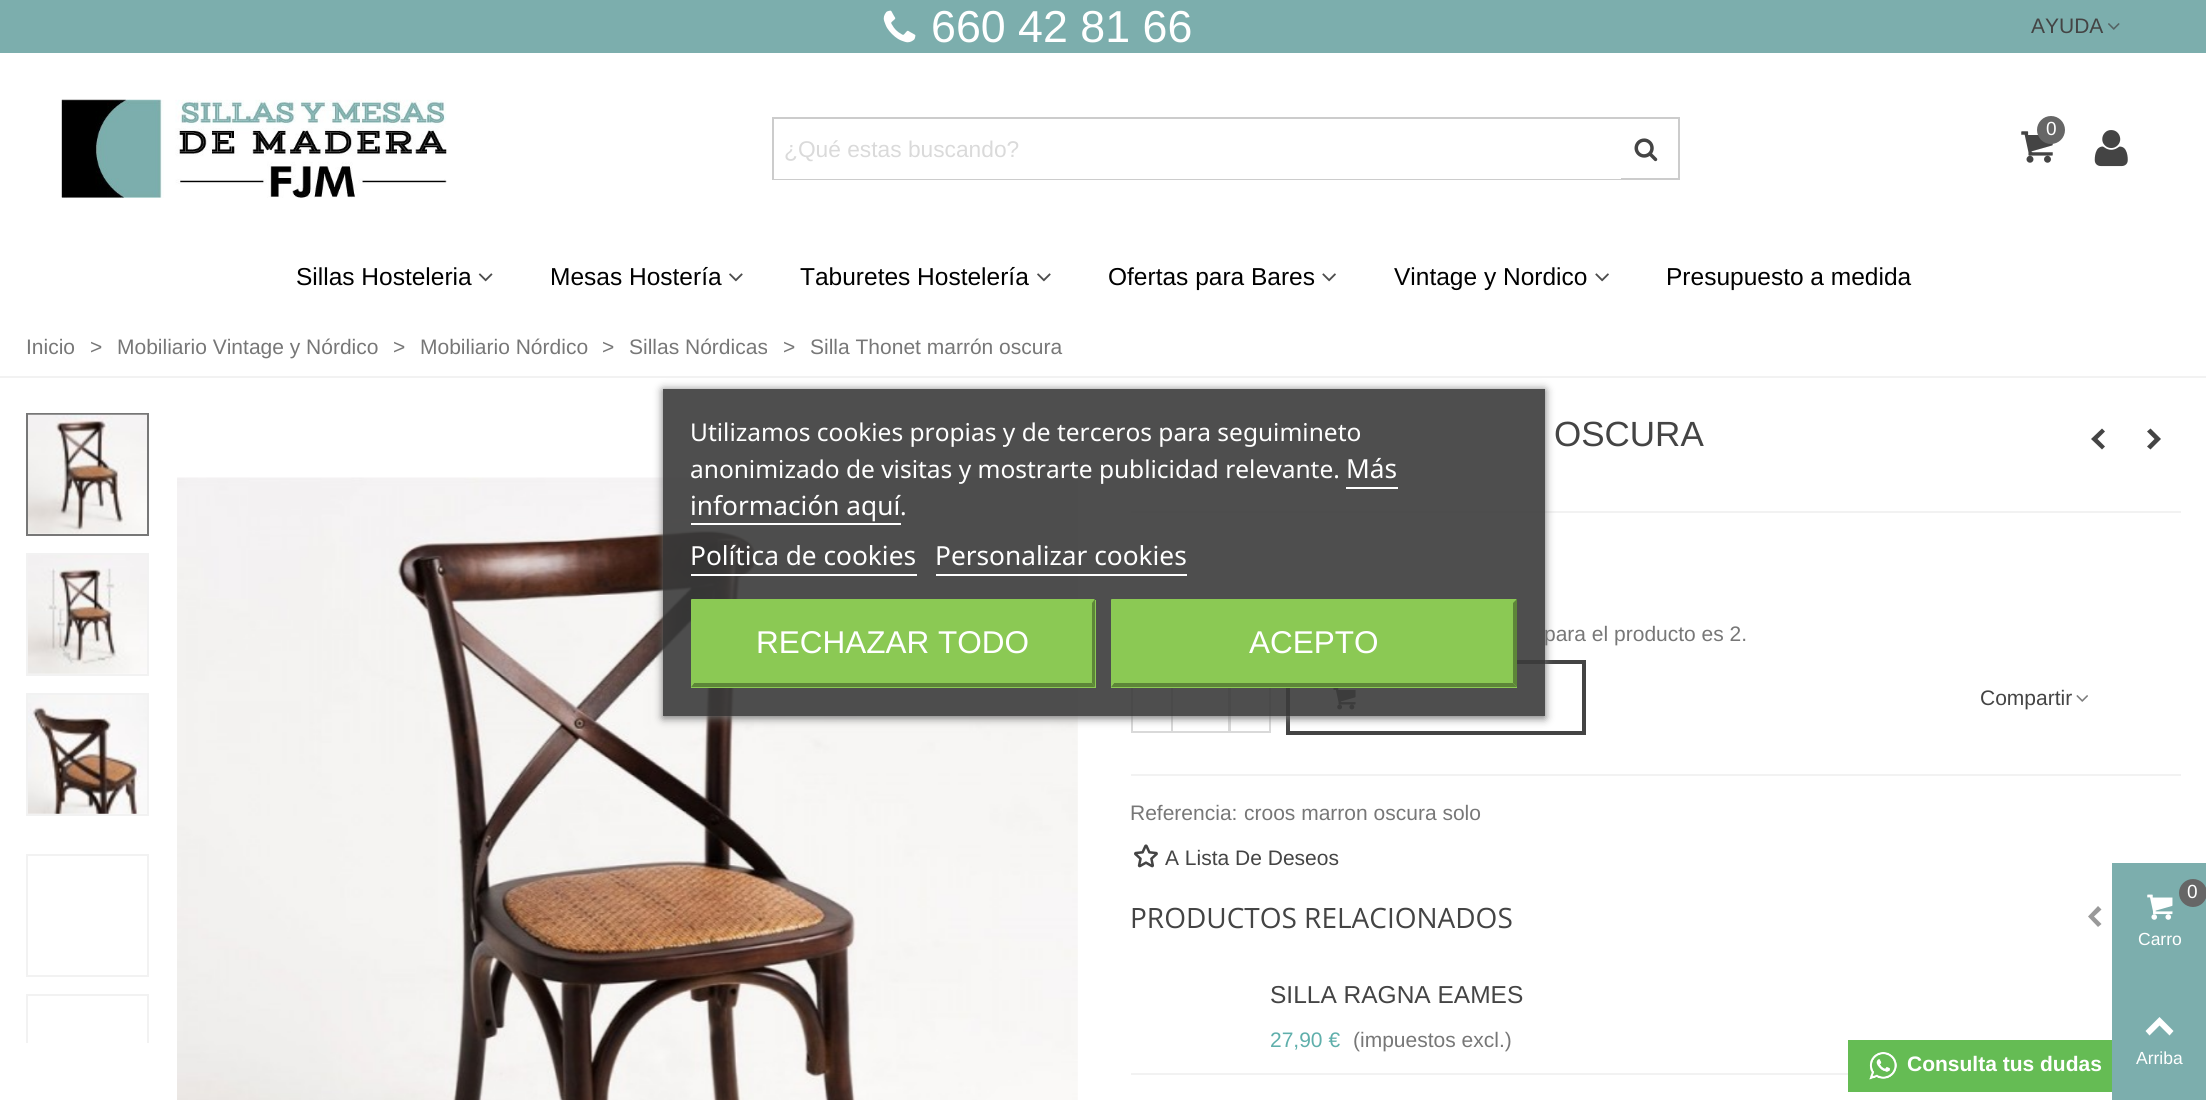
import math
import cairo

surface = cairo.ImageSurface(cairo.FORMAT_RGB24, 2206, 1100)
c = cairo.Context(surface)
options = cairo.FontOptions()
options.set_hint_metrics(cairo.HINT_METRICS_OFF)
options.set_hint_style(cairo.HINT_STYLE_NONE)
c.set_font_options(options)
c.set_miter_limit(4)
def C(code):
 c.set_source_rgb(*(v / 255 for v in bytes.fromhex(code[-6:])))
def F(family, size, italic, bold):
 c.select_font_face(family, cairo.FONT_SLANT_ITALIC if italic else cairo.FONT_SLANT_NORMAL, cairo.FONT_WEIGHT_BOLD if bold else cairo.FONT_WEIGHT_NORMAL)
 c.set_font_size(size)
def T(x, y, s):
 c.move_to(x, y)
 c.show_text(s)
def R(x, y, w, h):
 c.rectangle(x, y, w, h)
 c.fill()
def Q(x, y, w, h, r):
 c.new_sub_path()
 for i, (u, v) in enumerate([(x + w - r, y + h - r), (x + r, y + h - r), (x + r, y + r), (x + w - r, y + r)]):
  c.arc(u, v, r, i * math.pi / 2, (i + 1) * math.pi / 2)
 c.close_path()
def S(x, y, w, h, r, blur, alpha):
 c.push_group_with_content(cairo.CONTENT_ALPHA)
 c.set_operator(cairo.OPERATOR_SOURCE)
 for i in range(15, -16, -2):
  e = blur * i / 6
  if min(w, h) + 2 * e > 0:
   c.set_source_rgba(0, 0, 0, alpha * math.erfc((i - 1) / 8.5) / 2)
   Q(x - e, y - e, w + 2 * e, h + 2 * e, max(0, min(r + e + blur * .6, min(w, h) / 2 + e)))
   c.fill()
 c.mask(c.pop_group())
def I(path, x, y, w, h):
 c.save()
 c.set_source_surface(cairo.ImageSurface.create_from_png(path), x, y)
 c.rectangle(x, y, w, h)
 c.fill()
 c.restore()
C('ffffff')
c.paint()
C('7caead')
R(0,0,2206,53)
I('1.png',883,10,33,33)
F('Liberation Sans',44.75,0,0)
C('ffffff')
T(931,42,'660 42 81 66')
F('Liberation Sans',21,0,0)
C('444444')
T(2031,33,'AYUDA')
I('2.png',2108,23,12,7)
I('3.png',61,99,386,99)
I('4.png',2021,131,32,32)
C('666666')
c.arc(2051,130,14,0,2 * math.pi)
c.fill()
F('Liberation Sans',19,0,0)
C('ffffff')
T(2046,135,'0')
I('5.png',2094,130,34,37)
c.rectangle(773,118,906,61)
C('cccccc')
c.stroke()
C('ffffff')
R(774,178,847,1)
F('Liberation Sans',22.75,0,0)
C('dadada')
T(784,157,'¿Qué estas buscando?')
I('6.png',1634,138,24,24)
F('Liberation Sans',24.5,0,0)
C('000000')
T(296,285,'Sillas Hosteleria')
I('7.png',478,273,15,9)
T(550,285,'Mesas Hostería')
I('8.png',729,273,14,9)
T(800,285,'Taburetes Hostelería')
I('8.png',1037,273,14,9)
T(1108,285,'Ofertas para Bares')
I('9.png',1322,273,14,9)
T(1394,285,'Vintage y Nordico')
I('9.png',1595,273,14,9)
T(1666,285,'Presupuesto a medida')
C('f2f2f2')
R(0,376,2206,2)
F('Liberation Sans',21,0,0)
C('777777')
T(26,354,'Inicio')
T(90,354,'>')
T(117,354,'Mobiliario Vintage y Nórdico')
T(393,354,'>')
T(420,354,'Mobiliario Nórdico')
T(602,354,'>')
T(629,354,'Sillas Nórdicas')
T(783,354,'>')
T(810,354,'Silla Thonet marrón oscura')
c.rectangle(27,414,121,121)
c.stroke()
I('10.png',28,414,119,120)
c.rectangle(27,554,121,121)
C('f2f2f2')
c.stroke()
I('11.png',28,555,119,119)
c.rectangle(27,694,121,121)
c.stroke()
I('12.png',28,695,119,119)
c.rectangle(27,855,121,121)
c.stroke()
c.save()
c.rectangle(26,413,123,630)
c.clip()
c.rectangle(27,995,121,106)
c.stroke()
c.restore()
I('13.png',177,477,901,623)
F('Liberation Sans',35,0,0)
C('444444')
T(1554,446,'OSCURA')
c.new_path()
c.move_to(2091,439)
c.line_to(2102,428.5)
c.line_to(2105,431.5)
c.line_to(2097.5,439)
c.line_to(2105,446.5)
c.line_to(2102,449.5)
c.close_path()
c.fill()
c.new_path()
c.move_to(2147,446.5)
c.line_to(2154.5,439)
c.line_to(2147,431.5)
c.line_to(2150.5,428.5)
c.line_to(2161,439)
c.line_to(2150.5,449.5)
c.close_path()
c.fill()
C('f2f2f2')
R(1131,511,1050,2)
F('Liberation Sans',21,0,0)
C('777777')
T(1544,641,'para el producto es 2.')
c.rectangle(1132,664,40,68)
C('d9d9d9')
c.stroke()
c.rectangle(1172,664,57,68)
c.stroke()
c.rectangle(1230,664,40,68)
c.stroke()
c.rectangle(1288,662,296,71)
C('444444')
c.set_line_width(4)
c.stroke()
I('14.png',1333,688,23,22)
T(1980,705,'Compartir')
I('15.png',2076,695,12,7)
C('f2f2f2')
R(1131,774,1050,2)
C('777777')
T(1130,820,'Referencia:')
T(1244,820,'croos marron oscura solo')
I('16.png',1134,844,24,24)
C('444444')
T(1165,865,'A Lista De Deseos')
F('Open Sans',28,0,0)
T(1130,928,'PRODUCTOS RELACIONADOS')
C('999999')
c.new_path()
c.move_to(2088,916.5)
c.line_to(2098,906)
c.line_to(2101.5,909.5)
c.line_to(2094,916.5)
c.line_to(2101.5,924)
c.line_to(2098,927)
c.close_path()
c.fill()
C('f2f2f2')
R(1131,1073,717,2)
F('Liberation Sans',24.5,0,0)
C('444444')
T(1270,1003,'SILLA RAGNA EAMES')
F('Liberation Sans',21,0,0)
C('5fafab')
T(1270,1047,'27,90 €')
C('777777')
T(1353,1047,'(impuestos excl.)')
c.save()
c.set_fill_rule(cairo.FILL_RULE_EVEN_ODD)
c.new_path()
c.move_to(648,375)
c.line_to(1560,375)
c.line_to(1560,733)
c.line_to(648,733)
c.close_path()
c.move_to(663,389)
c.line_to(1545,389)
c.line_to(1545,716)
c.line_to(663,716)
c.close_path()
c.clip()
C('707070')
S(663,390,882,328,0,4.5,1)
c.restore()
c.set_source_rgba(0.231,0.231,0.231,0.9)
R(663,389,882,327)
F('Noto Sans',24.5,0,0)
C('ffffff')
T(690,441,'Utilizamos cookies propias y de terceros para seguimineto')
T(690,478,'anonimizado de visitas y mostrarte publicidad relevante.')
F('Noto Sans',26.25,0,0)
T(1346,478,'Más')
R(1346,487,52,2)
T(690,515,'información aquí')
R(691,523,210,2)
F('Noto Sans',24.5,0,0)
T(900,515,'.')
F('Noto Sans',26.25,0,0)
T(690,565,'Política de cookies')
R(691,574,226,2)
T(935,565,'Personalizar cookies')
R(936,574,251,2)
C('8bc954')
R(691,600,405,88)
c.new_path()
c.move_to(691,599)
c.line_to(1095,599)
c.line_to(1092,603)
c.line_to(694,603)
c.close_path()
c.fill()
C('5d8638')
c.new_path()
c.move_to(1095,599)
c.line_to(1095,687)
c.line_to(1092,683)
c.line_to(1092,603)
c.close_path()
c.fill()
c.new_path()
c.move_to(1095,687)
c.line_to(691,687)
c.line_to(694,683)
c.line_to(1092,683)
c.close_path()
c.fill()
C('8bc954')
c.new_path()
c.move_to(691,687)
c.line_to(691,599)
c.line_to(694,603)
c.line_to(694,683)
c.close_path()
c.fill()
F('Liberation Sans',31.5,0,0)
C('ffffff')
T(756,653,'RECHAZAR TODO')
C('8bc954')
R(1111,600,406,88)
c.new_path()
c.move_to(1111,599)
c.line_to(1517,599)
c.line_to(1513,603)
c.line_to(1114,603)
c.close_path()
c.fill()
C('5d8638')
c.new_path()
c.move_to(1517,599)
c.line_to(1517,687)
c.line_to(1513,683)
c.line_to(1513,603)
c.close_path()
c.fill()
c.new_path()
c.move_to(1517,687)
c.line_to(1111,687)
c.line_to(1114,683)
c.line_to(1513,683)
c.close_path()
c.fill()
C('8bc954')
c.new_path()
c.move_to(1111,687)
c.line_to(1111,599)
c.line_to(1114,603)
c.line_to(1114,683)
c.close_path()
c.fill()
C('ffffff')
T(1249,653,'ACEPTO')
C('65bc54')
R(1848,1040,264,52)
I('17.png',1869,1052,28,28)
F('Liberation Sans',21,0,1)
C('ffffff')
T(1907,1071,'Consulta tus dudas')
C('7caead')
R(2112,863,94,237)
C('666666')
c.new_path()
c.arc(2193,893,14,0,2 * math.pi)
c.fill()
F('Liberation Sans',19,0,0)
C('ffffff')
T(2187,898,'0')
I('18.png',2147,894,26,26)
F('Liberation Sans',17.5,0,0)
T(2138,945,'Carro')
c.new_path()
c.move_to(2145.5,1031)
c.line_to(2159.5,1017)
c.line_to(2173.5,1031)
c.line_to(2169.5,1035.5)
c.line_to(2159.5,1025.5)
c.line_to(2149.5,1035.5)
c.close_path()
c.fill()
T(2136,1064,'Arriba')
surface.write_to_png('o.png')
